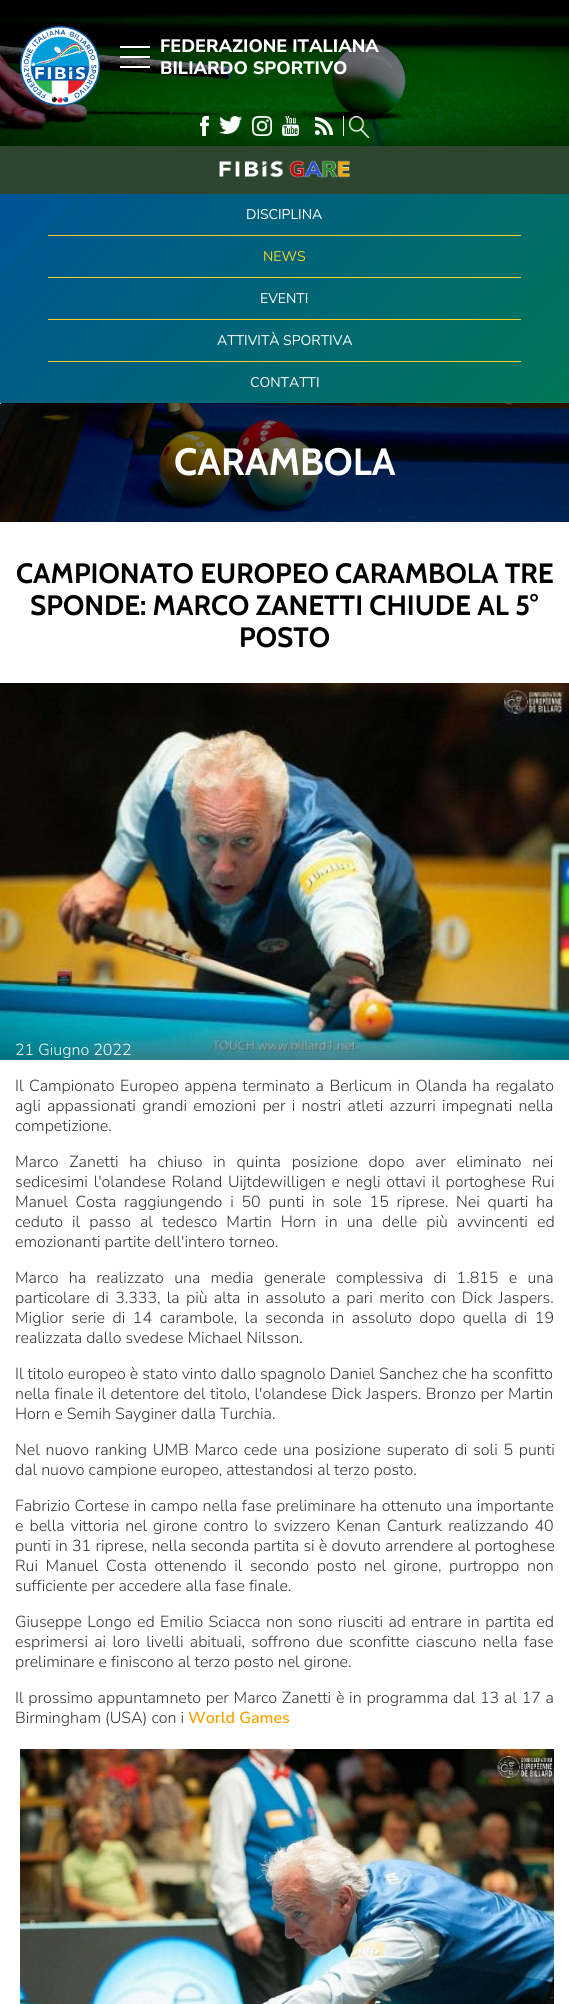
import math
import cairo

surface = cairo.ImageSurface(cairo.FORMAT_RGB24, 569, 2004)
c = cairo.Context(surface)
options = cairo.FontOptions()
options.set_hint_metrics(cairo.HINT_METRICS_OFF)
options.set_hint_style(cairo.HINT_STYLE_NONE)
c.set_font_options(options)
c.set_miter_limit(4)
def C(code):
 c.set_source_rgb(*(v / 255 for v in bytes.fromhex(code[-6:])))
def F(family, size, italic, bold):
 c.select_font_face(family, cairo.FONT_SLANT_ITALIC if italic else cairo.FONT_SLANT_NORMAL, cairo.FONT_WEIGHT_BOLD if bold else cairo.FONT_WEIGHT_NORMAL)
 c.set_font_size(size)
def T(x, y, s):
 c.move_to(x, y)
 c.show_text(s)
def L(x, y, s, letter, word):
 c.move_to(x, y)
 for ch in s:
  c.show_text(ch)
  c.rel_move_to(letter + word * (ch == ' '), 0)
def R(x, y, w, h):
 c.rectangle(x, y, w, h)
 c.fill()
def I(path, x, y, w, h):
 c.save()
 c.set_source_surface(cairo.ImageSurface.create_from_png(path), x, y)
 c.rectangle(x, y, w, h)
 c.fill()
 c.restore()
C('ffffff')
c.paint()
C('000000')
R(0,0,569,14)
I('1.png',0,14,569,132)
I('2.png',20,26,80,80)
C('ffffff')
R(120,46,30,2)
R(120,56,30,2)
R(120,66,30,2)
F('Nunito Sans ExtraBold',18,0,0)
T(160,52,'FEDERAZIONE ITALIANA')
T(160,74,'BILIARDO SPORTIVO')
I('3.png',200,116,9,20)
I('4.png',219,116,23,18)
I('5.png',252,116,20,20)
I('6.png',282,116,17,20)
I('7.png',315,117,18,18)
R(343,116,1,20)
I('8.png',349,116,20,22)
C('2e4530')
R(0,146,569,48)
I('9.png',219,160,131,18)
gradient = cairo.LinearGradient(90,104,479,493)
gradient.add_color_stop_rgba(0,0,0.325,0.588,1)
gradient.add_color_stop_rgba(1,0,0.467,0.341,1)
c.set_source(gradient)
R(0,194,569,209)
C('f5d128')
R(48,235,473,1)
F('Nunito Sans',14,0,0)
C('ffffff')
T(246,219,'DISCIPLINA')
C('f5d128')
R(48,277,473,1)
T(263,261,'NEWS')
R(48,319,473,1)
C('ffffff')
T(260,303,'EVENTI')
C('f5d128')
R(48,361,473,1)
C('ffffff')
T(217,345,'ATTIVITÀ SPORTIVA')
T(250,387,'CONTATTI')
I('10.png',0,403,569,119)
F('Cabin',38,0,1)
T(174,475,'CARAMBOLA')
F('Cabin',28,0,1)
C('000000')
T(16,583,'CAMPIONATO EUROPEO CARAMBOLA TRE')
T(30,615,'SPONDE: MARCO ZANETTI CHIUDE AL 5°')
T(239,647,'POSTO')
I('11.png',0,683,569,377)
F('Nunito Sans Light',16,0,0)
C('ffffff')
T(15,1055,'21 Giugno 2022')
C('333333')
L(15,1091,'Il Campionato Europeo appena terminato a Berlicum in Olanda ha regalato',0,1.5)
L(15,1111,'agli appassionati grandi emozioni per i nostri atleti azzurri impegnati nella',0,2.25)
T(15,1131,'competizione.')
L(15,1167,'Marco Zanetti ha chiuso in quinta posizione dopo aver eliminato nei',0,6.75)
L(15,1187,'sedicesimi l\'olandese Roland Uijtdewilligen e negli ottavi il portoghese Rui',0,1.75)
L(15,1207,'Manuel Costa raggiungendo i 50 punti in sole 15 riprese. Nei quarti ha',0,3.75)
L(15,1227,'ceduto il passo al tedesco Martin Horn in una delle più avvincenti ed',0,5.1)
T(15,1247,'emozionanti partite dell\'intero torneo.')
L(15,1283,'Marco ha realizzato una media generale complessiva di 1.815 e una',0,6.25)
L(15,1303,'particolare di 3.333, la più alta in assoluto a pari merito con Dick Jaspers.',0,2.25)
L(15,1323,'Miglior serie di 14 carambole, la seconda in assoluto dopo quella di 19',0,3.6)
T(15,1343,'realizzata dallo svedese Michael Nilsson.')
T(15,1379,'Il titolo europeo è stato vinto dallo spagnolo Daniel Sanchez che ha sconfitto')
L(15,1399,'nella finale il detentore del titolo, l\'olandese Dick Jaspers. Bronzo per Martin',0,.5)
T(15,1419,'Horn e Semih Sayginer dalla Turchia.')
L(15,1455,'Nel nuovo ranking UMB Marco cede una posizione superato di soli 5 punti',0,1.75)
T(15,1475,'dal nuovo campione europeo, attestandosi al terzo posto.')
L(15,1511,'Fabrizio Cortese in campo nella fase preliminare ha ottenuto una importante',0,.5)
L(15,1531,'e bella vittoria nel girone contro lo svizzero Kenan Canturk realizzando 40',0,2)
L(15,1551,'punti in 31 riprese, nella seconda partita si è dovuto arrendere al portoghese',0,.25)
L(15,1571,'Rui Manuel Costa ottenendo il secondo posto nel girone, purtroppo non',0,3.6)
T(15,1591,'sufficiente per accedere alla fase finale.')
L(15,1627,'Giuseppe Longo ed Emilio Sciacca non sono riusciti ad entrare in partita ed',0,1.4)
L(15,1647,'esprimersi ai loro livelli abituali, soffrono due sconfitte ciascuno nella fase',0,2.25)
T(15,1667,'preliminare e finiscono al terzo posto nel girone.')
L(15,1703,'Il prossimo appuntamneto per Marco Zanetti è in programma dal 13 al 17 a',0,.75)
T(15,1723,'Birmingham (USA) con i')
F('Nunito Sans SemiBold',16,0,0)
C('ffa000')
T(188,1723,'World Games')
I('12.png',20,1749,534,255)
surface.write_to_png('o.png')
